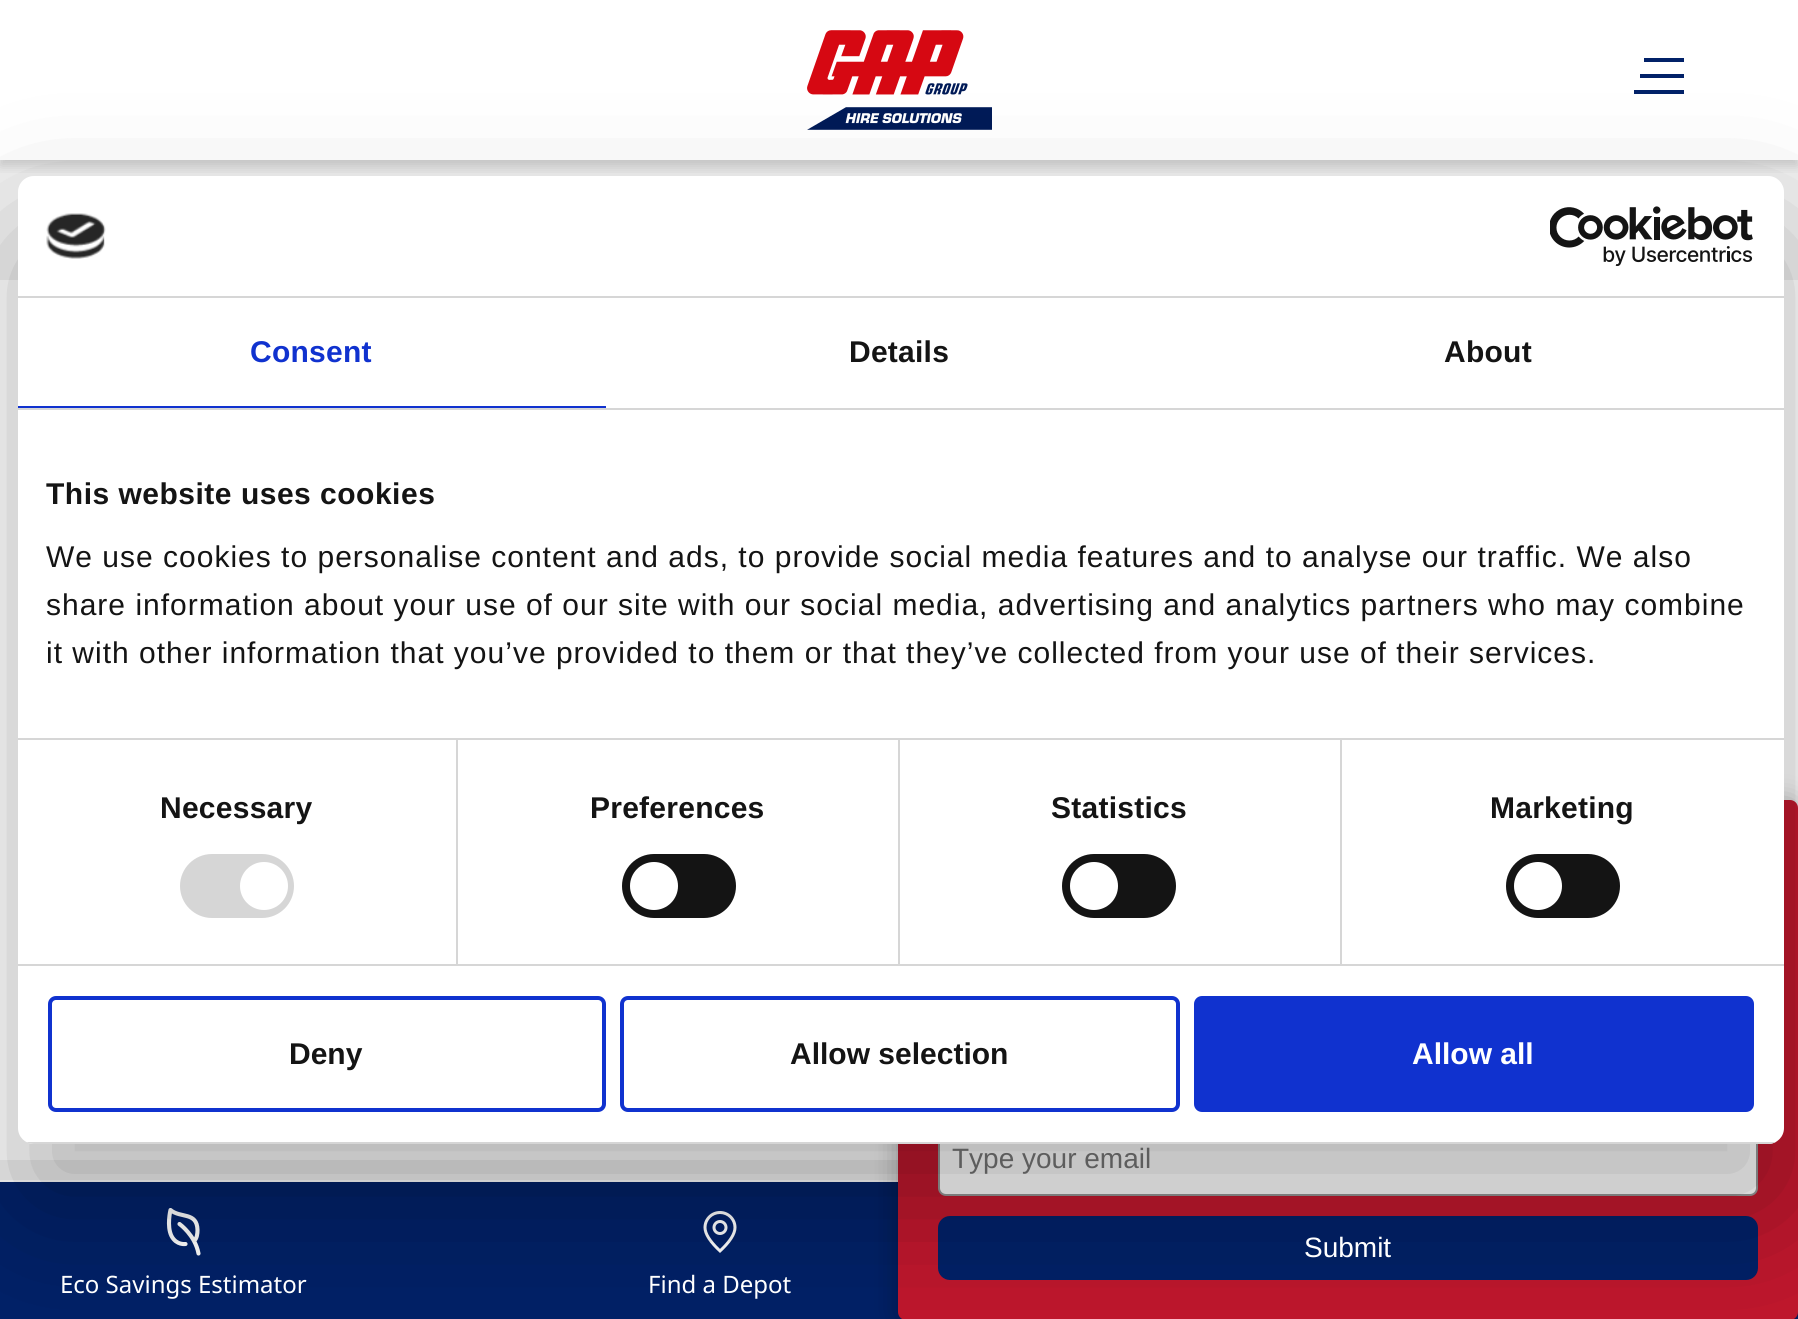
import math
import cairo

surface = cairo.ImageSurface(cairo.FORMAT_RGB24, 1798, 1319)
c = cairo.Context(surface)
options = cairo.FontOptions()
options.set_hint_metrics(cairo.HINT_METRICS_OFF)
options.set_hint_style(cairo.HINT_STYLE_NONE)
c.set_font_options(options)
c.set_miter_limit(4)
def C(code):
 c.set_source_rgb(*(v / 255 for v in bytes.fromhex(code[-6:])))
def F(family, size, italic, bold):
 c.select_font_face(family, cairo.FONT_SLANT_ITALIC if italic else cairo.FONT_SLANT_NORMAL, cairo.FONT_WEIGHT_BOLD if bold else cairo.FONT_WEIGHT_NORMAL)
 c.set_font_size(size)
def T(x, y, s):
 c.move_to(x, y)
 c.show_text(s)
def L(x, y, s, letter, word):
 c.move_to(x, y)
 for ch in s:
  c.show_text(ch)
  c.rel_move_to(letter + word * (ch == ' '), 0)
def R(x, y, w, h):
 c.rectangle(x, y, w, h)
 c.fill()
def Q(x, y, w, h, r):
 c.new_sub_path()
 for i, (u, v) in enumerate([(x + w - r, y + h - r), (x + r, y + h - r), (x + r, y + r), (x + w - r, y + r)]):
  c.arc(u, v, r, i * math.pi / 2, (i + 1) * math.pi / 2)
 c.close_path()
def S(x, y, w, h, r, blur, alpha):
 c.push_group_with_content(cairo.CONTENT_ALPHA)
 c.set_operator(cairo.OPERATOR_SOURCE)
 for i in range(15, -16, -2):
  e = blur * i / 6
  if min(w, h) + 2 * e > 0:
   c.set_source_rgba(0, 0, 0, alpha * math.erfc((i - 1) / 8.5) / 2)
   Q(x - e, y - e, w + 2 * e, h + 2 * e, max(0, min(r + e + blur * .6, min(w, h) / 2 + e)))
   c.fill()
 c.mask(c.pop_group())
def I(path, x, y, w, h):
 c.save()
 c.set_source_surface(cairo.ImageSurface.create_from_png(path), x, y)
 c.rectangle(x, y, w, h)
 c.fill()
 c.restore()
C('ffffff')
c.paint()
C('f0f0f0')
R(0,160,1798,120)
R(0,1160,898,20)
C('012168')
R(0,1182,1798,137)
C('000000')
S(898,802,900,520,8,13,.3)
C('c0172d')
Q(898,800,900,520,8)
c.fill()
C('ffffff')
Q(939,1123,818,72,7)
c.fill_preserve()
C('979797')
c.stroke()
C('012168')
Q(938,1216,820,64,12)
c.fill()
c.save()
c.rectangle(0,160,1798,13)
c.clip()
C('000000')
S(0,6,1798,160,0,6,.16)
c.restore()
I('3.png',807,30,185,100)
R(1644,58,40,4)
R(1640,74,44,4)
R(1634,90,50,4)
c.new_path()
c.move_to(194,1241)
c.curve_to(197,1238.5,197.5,1233.5,197.5,1230)
c.curve_to(197,1211.5,180.5,1218.5,170.5,1210)
c.curve_to(170.5,1210,166.5,1226,171.5,1236)
c.curve_to(176.5,1245.5,185.5,1244,185.5,1244)
c.move_to(179.5,1224)
c.curve_to(179.5,1224,195,1235,198.5,1253.5)
C('ffffff')
c.set_line_width(4.1)
c.set_line_cap(cairo.LINE_CAP_ROUND)
c.set_line_join(cairo.LINE_JOIN_ROUND)
c.stroke()
I('4.png',703,1211,34,42)
C('000000')
S(18,240,1766,968,16,68,.3)
C('ffffff')
Q(18,176,1766,968,16)
c.fill()
C('d6d6d6')
R(18,296,1766,2)
I('1.png',46,213,60,46)
I('2.png',1550,206,203,60)
R(18,408,1766,2)
C('1032cf')
R(18,406,588,2)
F('Liberation Sans',30,0,1)
L(250,362,'Consent',.25,0)
C('141414')
L(849,362,'Details',.25,0)
L(1444,362,'About',.25,0)
C('d6d6d6')
R(18,738,1766,2)
C('141414')
L(46,504,'This website uses cookies',.5,0)
F('Liberation Sans',30,0,0)
L(46,567,'We use cookies to personalise content and ads, to provide social media features and to analyse our traffic. We also',1,0)
L(46,615,'share information about your use of our site with our social media, advertising and analytics partners who may combine',1,0)
L(46,663,'it with other information that you’ve provided to them or that they’ve collected from your use of their services.',1,0)
C('d6d6d6')
R(18,964,1766,2)
R(456,740,2,224)
F('Liberation Sans',30,0,1)
C('141414')
L(160,818,'Necessary',.25,0)
C('d6d6d6')
Q(180,854,114,64,32)
c.fill()
C('ffffff')
c.arc(264,886,24,0,2 * math.pi)
c.fill()
C('d6d6d6')
R(898,740,2,224)
C('141414')
L(590,818,'Preferences',.25,0)
Q(622,854,114,64,32)
c.fill()
C('ffffff')
c.arc(654,886,24,0,2 * math.pi)
c.fill()
C('d6d6d6')
R(1340,740,2,224)
C('141414')
L(1051,818,'Statistics',.25,0)
Q(1062,854,114,64,32)
c.fill()
C('ffffff')
c.arc(1094,886,24,0,2 * math.pi)
c.fill()
C('141414')
L(1490,818,'Marketing',.25,0)
Q(1506,854,114,64,32)
c.fill()
C('ffffff')
c.arc(1538,886,24,0,2 * math.pi)
c.fill()
c.save()
Q(18,176,1766,968,16)
c.clip()
C('d6d6d6')
R(18,1142,1766,2)
c.restore()
Q(50,998,554,112,6)
C('1032cf')
c.set_line_width(4)
c.set_line_cap(cairo.LINE_CAP_BUTT)
c.set_line_join(cairo.LINE_JOIN_MITER)
c.stroke()
C('141414')
T(289,1064,'Deny')
Q(622,998,556,112,6)
C('1032cf')
c.stroke()
C('141414')
T(790,1064,'Allow selection')
C('1032cf')
Q(1196,998,556,112,6)
c.fill_preserve()
c.stroke()
C('ffffff')
T(1412,1064,'Allow all')
F('Liberation Sans',28,0,0)
C('5d5d5d')
T(952,1168,'Type your email')
C('ffffff')
T(1304,1257,'Submit')
F('Noto Sans',24,0,0)
T(60,1293,'Eco Savings Estimator')
T(648,1293,'Find a Depot')
surface.write_to_png('o.png')
